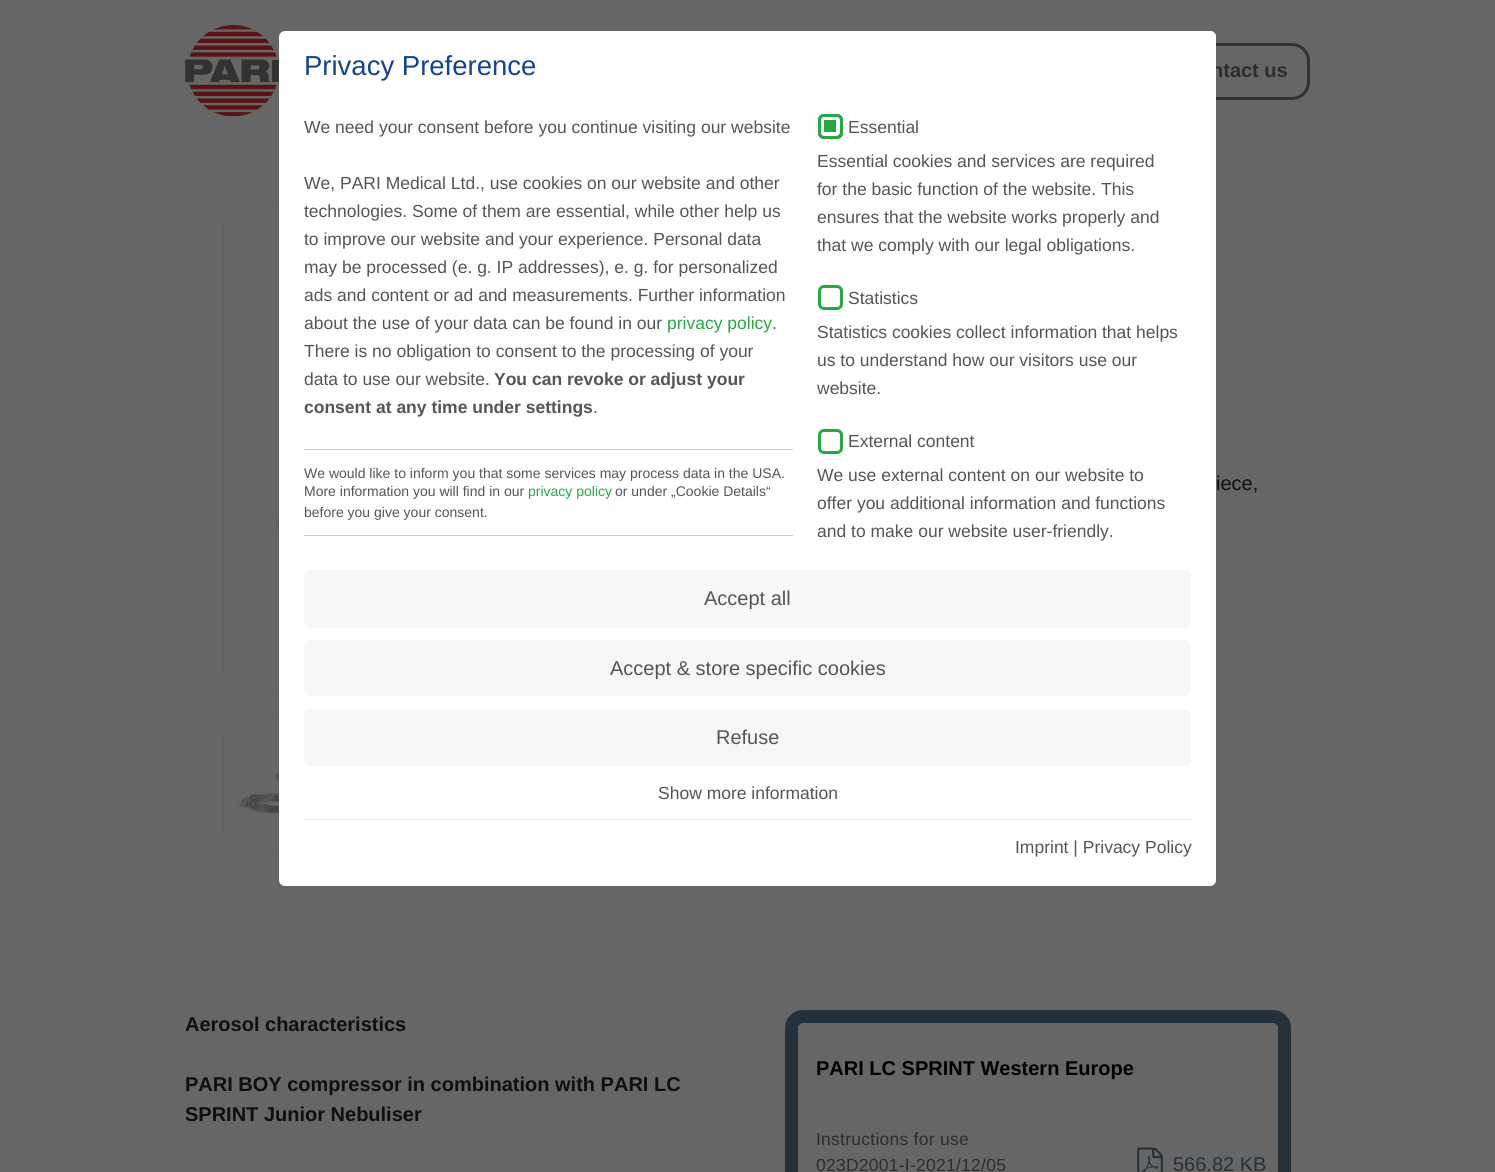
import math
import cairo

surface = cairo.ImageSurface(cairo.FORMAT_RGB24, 1495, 1172)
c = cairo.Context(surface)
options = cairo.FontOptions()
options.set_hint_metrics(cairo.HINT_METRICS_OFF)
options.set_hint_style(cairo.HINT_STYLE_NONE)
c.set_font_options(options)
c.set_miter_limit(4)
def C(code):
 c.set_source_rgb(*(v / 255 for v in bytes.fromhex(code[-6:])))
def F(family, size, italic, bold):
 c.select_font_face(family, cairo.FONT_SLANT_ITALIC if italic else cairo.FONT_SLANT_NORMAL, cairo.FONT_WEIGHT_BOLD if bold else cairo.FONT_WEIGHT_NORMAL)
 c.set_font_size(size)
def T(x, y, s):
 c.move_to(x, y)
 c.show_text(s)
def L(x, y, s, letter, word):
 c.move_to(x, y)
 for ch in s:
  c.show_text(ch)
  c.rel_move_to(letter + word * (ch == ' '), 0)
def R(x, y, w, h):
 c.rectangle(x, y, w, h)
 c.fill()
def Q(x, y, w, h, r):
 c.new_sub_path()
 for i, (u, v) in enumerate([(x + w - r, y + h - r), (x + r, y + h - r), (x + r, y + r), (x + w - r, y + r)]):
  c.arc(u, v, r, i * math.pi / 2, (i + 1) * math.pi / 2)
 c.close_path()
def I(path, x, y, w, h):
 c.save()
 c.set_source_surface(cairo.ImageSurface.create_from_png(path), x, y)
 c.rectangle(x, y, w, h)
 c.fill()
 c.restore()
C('666666')
c.paint()
Q(1162.5,44.5,146,54,16.5)
C('323231')
c.set_line_width(3)
c.stroke()
F('Liberation Sans',20,0,1)
C('2d2d2d')
T(1211,77,'ntact us')
Q(223.5,204.5,486,486,17.5)
C('626262')
c.set_line_width(1)
c.stroke()
Q(223.5,716.5,136,137,17.5)
c.stroke()
C('ffffff')
Q(279,31,937,855,6)
c.fill()
F('Liberation Sans',27.5,0,0)
C('134492')
T(304,75,'Privacy Preference')
C('ffffff')
c.new_path()
c.move_to(1166,31)
c.line_to(1210,31)
c.curve_to(1213.5,31,1216,33.5,1216,37)
c.line_to(1216,85)
c.line_to(1166,85)
c.close_path()
c.fill()
F('Liberation Sans',17.5,0,0)
C('555555')
T(304,133,'We need your consent before you continue visiting our website')
T(304,189,'We, PARI Medical Ltd., use cookies on our website and other')
T(304,217,'technologies. Some of them are essential, while other help us')
T(304,245,'to improve our website and your experience. Personal data')
T(304,273,'may be processed (e. g. IP addresses), e. g. for personalized')
T(304,301,'ads and content or ad and measurements. Further information')
T(304,329,'about the use of your data can be found in our')
C('28a745')
T(667,329,'privacy policy')
C('555555')
T(772,329,'.')
T(304,357,'There is no obligation to consent to the processing of your')
T(304,385,'data to use our website.')
F('Liberation Sans',17.5,0,1)
T(494,385,'You can revoke or adjust your')
T(304,413,'consent at any time under settings')
F('Liberation Sans',17.5,0,0)
T(593,413,'.')
C('cccccc')
R(304,449,489,1)
R(304,535,489,1)
F('Liberation Sans',14,0,0)
C('555555')
T(304,478,'We would like to inform you that some services may process data in the USA.')
T(304,496,'More information you will find in our')
C('28a745')
T(528,496,'privacy policy')
C('555555')
T(615,496,'or under „Cookie Details“')
T(304,517,'before you give your consent.')
C('28a745')
Q(818,114,25,25,6)
c.fill()
Q(822,118,16,16,2)
C('ffffff')
c.set_line_width(4)
c.stroke()
Q(819.5,115.5,22,22,4.5)
C('28a745')
c.set_line_width(3)
c.stroke()
F('Liberation Sans',17.5,0,0)
C('555555')
T(848,133,'Essential')
T(817,167,'Essential cookies and services are required')
T(817,195,'for the basic function of the website. This')
T(817,223,'ensures that the website works properly and')
T(817,251,'that we comply with our legal obligations.')
Q(819.5,286.5,22,22,4.5)
C('28a745')
c.stroke()
C('555555')
T(848,304,'Statistics')
T(817,338,'Statistics cookies collect information that helps')
T(817,366,'us to understand how our visitors use our')
T(817,394,'website.')
Q(819.5,430.5,22,22,4.5)
C('28a745')
c.stroke()
C('555555')
T(848,447,'External content')
T(817,481,'We use external content on our website to')
T(817,509,'offer you additional information and functions')
T(817,537,'and to make our website user-friendly.')
C('f7f7f7')
Q(304,570,887,58,6)
c.fill()
F('Liberation Sans',20,0,0)
C('555555')
T(704,605,'Accept all')
C('f7f7f7')
Q(304,640,887,56,6)
c.fill()
C('555555')
T(610,675,'Accept & store specific cookies')
C('f7f7f7')
Q(304,709,887,57,6)
c.fill()
C('555555')
T(716,744,'Refuse')
F('Liberation Sans',17.5,0,0)
T(658,799,'Show more information')
C('ececed')
R(304,819,887,1)
C('555555')
T(1015,853,'Imprint | Privacy Policy')
I('1.png',185,25,94,91)
I('2.png',275,369,4,182)
I('3.png',238,763,41,51)
F('Liberation Sans',20,0,0)
C('0d0f10')
T(1216,490,'iece,')
F('Liberation Sans',20,0,1)
T(185,1031,'Aerosol characteristics')
T(185,1091,'PARI BOY compressor in combination with PARI LC')
T(185,1121,'SPRINT Junior Nebuliser')
Q(791.5,1016.5,493,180,11.5)
C('24313a')
c.set_line_width(13)
c.stroke()
C('000000')
T(816,1075,'PARI LC SPRINT Western Europe')
F('Liberation Sans',17.5,0,0)
C('2d2d2d')
L(816,1145,'Instructions for use',.25,0)
L(816,1171,'023D2001-I-2021/12/05',.25,0)
I('4.png',1137,1147,26,25)
F('Liberation Sans',20,0,0)
C('243138')
T(1173,1171,'566.82 KB')
surface.write_to_png('o.png')
